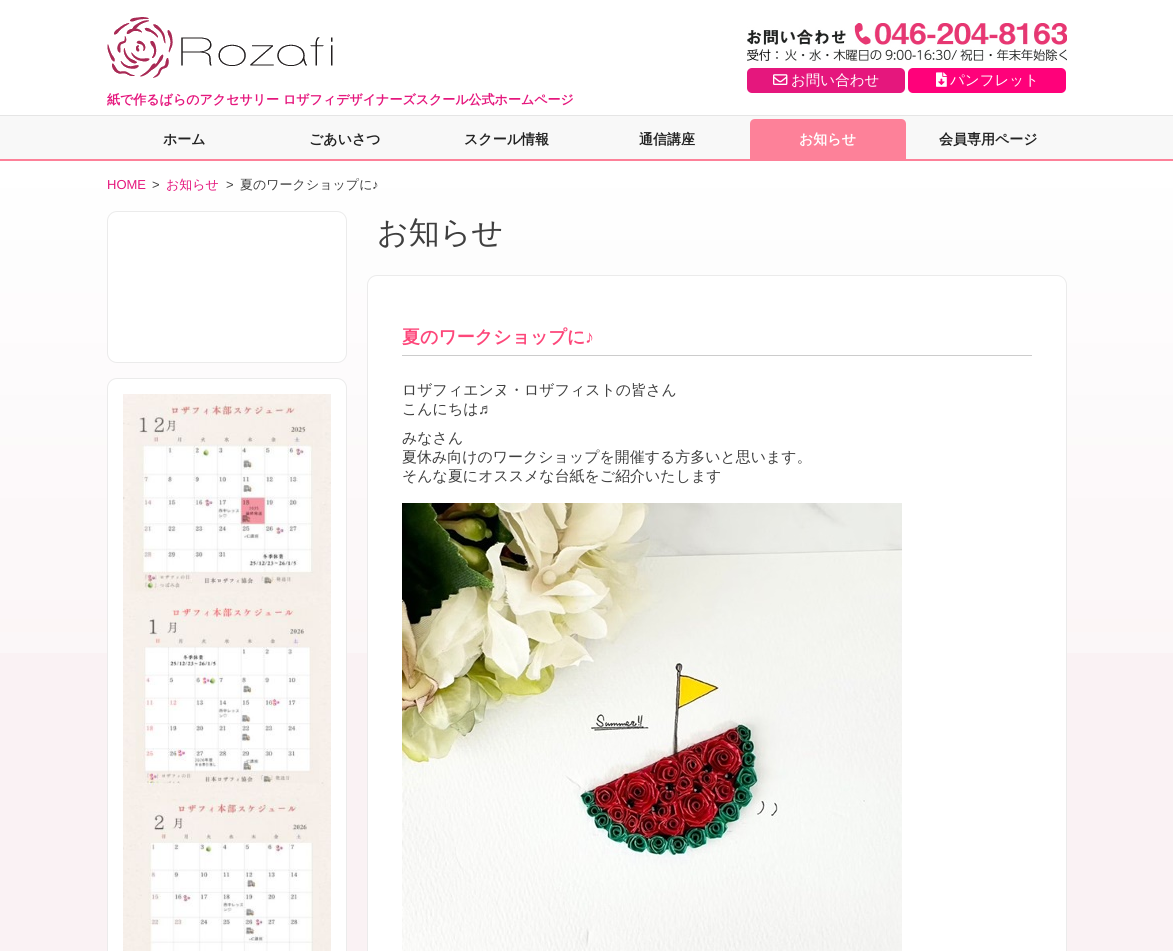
import math
import cairo

surface = cairo.ImageSurface(cairo.FORMAT_RGB24, 1173, 951)
c = cairo.Context(surface)
options = cairo.FontOptions()
options.set_hint_metrics(cairo.HINT_METRICS_OFF)
options.set_hint_style(cairo.HINT_STYLE_NONE)
c.set_font_options(options)
c.set_miter_limit(4)
def C(code):
 c.set_source_rgb(*(v / 255 for v in bytes.fromhex(code[-6:])))
def F(family, size, italic, bold):
 c.select_font_face(family, cairo.FONT_SLANT_ITALIC if italic else cairo.FONT_SLANT_NORMAL, cairo.FONT_WEIGHT_BOLD if bold else cairo.FONT_WEIGHT_NORMAL)
 c.set_font_size(size)
def T(x, y, s):
 c.move_to(x, y)
 c.show_text(s)
def R(x, y, w, h):
 c.rectangle(x, y, w, h)
 c.fill()
def Q(x, y, w, h, r):
 c.new_sub_path()
 for i, (u, v) in enumerate([(x + w - r, y + h - r), (x + r, y + h - r), (x + r, y + r), (x + w - r, y + r)]):
  c.arc(u, v, r, i * math.pi / 2, (i + 1) * math.pi / 2)
 c.close_path()
def I(path, x, y, w, h):
 c.save()
 c.set_source_surface(cairo.ImageSurface.create_from_png(path), x, y)
 c.rectangle(x, y, w, h)
 c.fill()
 c.restore()
C('ffffff')
c.paint()
I('1.png',107,17,226,61)
I('2.png',747,23,320,38)
C('e5177d')
Q(747,68,158,25,5)
c.fill()
I('3.png',773,74,15,11)
F('WenQuanYi Zen Hei Medium',14.5,0,0)
C('ffffff')
T(791,85,'お問い合わせ')
C('ff017a')
Q(908,68,158,25,5)
c.fill()
I('4.png',936,72,11,15)
C('ffffff')
T(950,85,'パンフレット')
F('WenQuanYi Zen Hei',13,0,1)
C('e5177d')
T(107,104,'紙で作るばらのアクセサリー ロザフィデザイナーズスクール公式ホームページ')
C('f8f8f8')
R(0,116,1173,43)
C('e5e5e5')
R(0,115,1173,1)
F('WenQuanYi Zen Hei',14,0,1)
C('222222')
T(163,144,'ホーム')
T(309,144,'ごあいさつ')
T(464,144,'スクール情報')
T(639,144,'通信講座')
C('fd8199')
c.new_path()
c.move_to(755,119)
c.line_to(901,119)
c.curve_to(904,119,906,121,906,124)
c.line_to(906,159)
c.line_to(750,159)
c.line_to(750,124)
c.curve_to(750,121,752,119,755,119)
c.close_path()
c.fill()
C('ffffff')
T(799,144,'お知らせ')
C('222222')
T(939,144,'会員専用ページ')
C('faf2f4')
R(0,653,1173,298)
I('5.png',0,161,1173,492)
C('fd8199')
R(0,159,1173,2)
F('Liberation Sans',13,0,0)
C('e5177d')
T(107,189,'HOME')
C('3f3f3f')
T(152,189,'>')
F('WenQuanYi Zen Hei Medium',13,0,0)
C('e5177d')
T(166,189,'お知らせ')
F('Liberation Sans',13,0,0)
C('3f3f3f')
T(226,189,'>')
F('WenQuanYi Zen Hei Medium',13,0,0)
T(240,189,'夏のワークショップに')
F('Liberation Sans',13,0,0)
T(372,189,'♪')
C('ffffff')
Q(107.5,211.5,239,151,9.5)
c.fill_preserve()
C('ebebeb')
c.set_line_width(1)
c.stroke()
C('ffffff')
Q(107.5,378.5,239,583,9.5)
c.fill_preserve()
C('ebebeb')
c.stroke()
I('6.png',123,394,208,557)
F('WenQuanYi Zen Hei Medium',31,0,0)
C('3f3f3f')
T(377,243,'お知らせ')
C('ffffff')
Q(367.5,275.5,699,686,9.5)
c.fill_preserve()
C('ebebeb')
c.stroke()
C('cccccc')
R(402,355,630,1)
F('WenQuanYi Zen Hei',18,0,1)
C('fd477a')
T(402,343,'夏のワークショップに')
F('Liberation Sans',18,0,1)
T(585,343,'♪')
F('WenQuanYi Zen Hei Medium',14.95,0,0)
C('3f3f3f')
T(402,395,'ロザフィエンヌ・ロザフィストの皆さん')
T(402,414,'こんにちは')
F('Liberation Sans',14.95,0,0)
T(478,414,'♬')
F('WenQuanYi Zen Hei Medium',14.95,0,0)
T(402,443,'みなさん')
T(402,462,'夏休み向けのワークショップを開催する方多いと思います。')
T(402,481,'そんな夏にオススメな台紙をご紹介いたします')
I('7.png',402,503,500,448)
surface.write_to_png('o.png')
